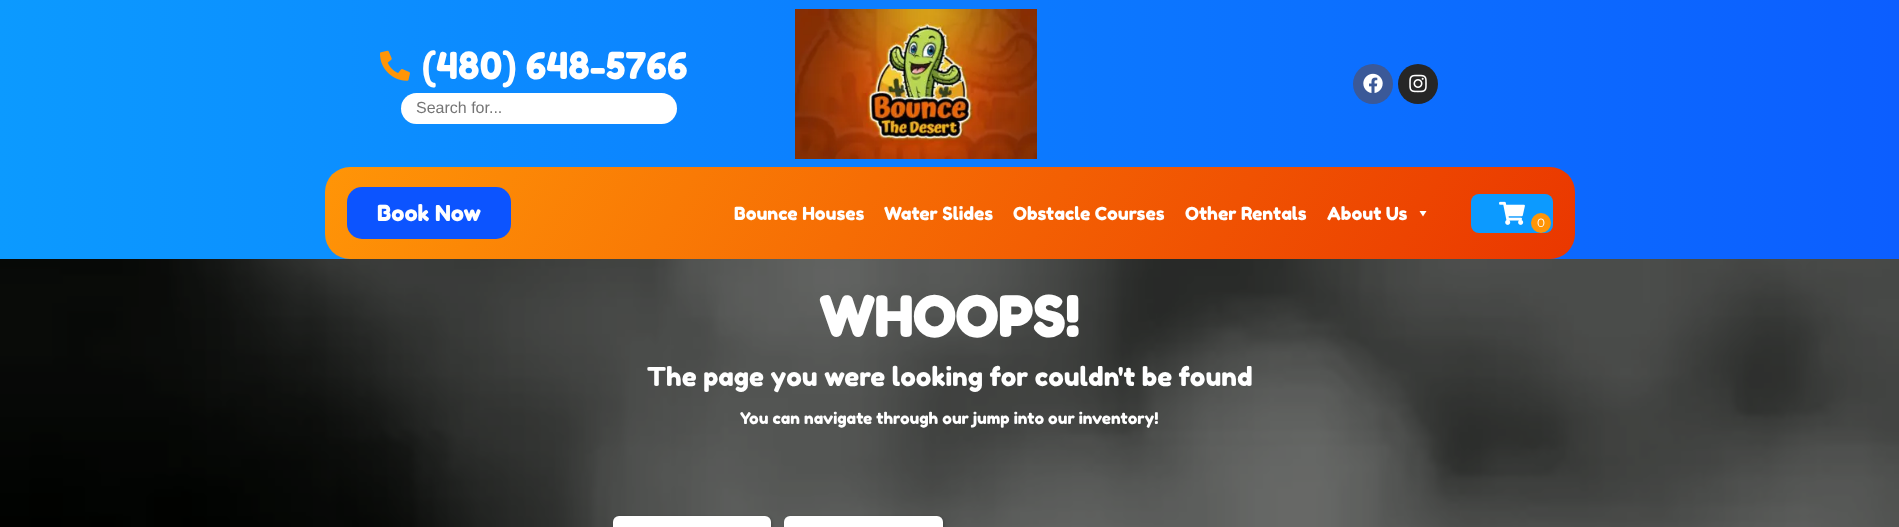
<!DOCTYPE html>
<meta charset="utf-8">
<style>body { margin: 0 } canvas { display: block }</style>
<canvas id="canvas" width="1899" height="527"></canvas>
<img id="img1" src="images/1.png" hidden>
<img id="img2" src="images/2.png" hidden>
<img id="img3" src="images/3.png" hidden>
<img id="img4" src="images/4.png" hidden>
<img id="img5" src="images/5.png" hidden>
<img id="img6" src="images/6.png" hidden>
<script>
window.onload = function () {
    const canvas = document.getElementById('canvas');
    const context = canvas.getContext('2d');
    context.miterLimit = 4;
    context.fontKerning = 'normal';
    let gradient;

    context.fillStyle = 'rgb(255, 255, 255)';
    context.fillRect(0, 0, 1899, 527);
    gradient = context.createLinearGradient(0, 504, 1899, 503);
    gradient.addColorStop(0, 'rgb(12, 154, 255)');
    gradient.addColorStop(1, 'rgb(12, 94, 255)');
    context.fillStyle = gradient;
    context.fillRect(0, 0, 1899, 259);
    context.drawImage(document.getElementById('img1'), 380, 50, 30, 31);
    context.fillStyle = 'rgb(255, 255, 255)';
    context.beginPath();
    context.roundRect(401, 93, 276, 31, 15.5);
    context.fill();
    context.drawImage(document.getElementById('img2'), 795, 9, 242, 150);
    context.fillStyle = 'rgb(59, 89, 152)';
    context.beginPath();
    context.arc(1373, 84, 20, 0, 2 * Math.PI);
    context.fill();
    context.drawImage(document.getElementById('img3'), 1363, 73, 20, 20);
    context.fillStyle = 'rgb(38, 38, 38)';
    context.beginPath();
    context.arc(1418, 84, 20, 0, 2 * Math.PI);
    context.fill();
    context.drawImage(document.getElementById('img4'), 1409, 74, 18, 19);
    gradient = context.createLinearGradient(461, -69, 1439, 495);
    gradient.addColorStop(0, 'rgb(255, 149, 7)');
    gradient.addColorStop(1, 'rgb(234, 55, 0)');
    context.fillStyle = gradient;
    context.beginPath();
    context.roundRect(325, 167, 1250, 92, 25);
    context.fill();
    context.fillStyle = 'rgb(12, 84, 255)';
    context.beginPath();
    context.roundRect(347, 187, 164, 52, 15);
    context.fill();
    context.fillStyle = 'rgb(255, 255, 255)';
    context.beginPath();
    context.moveTo(1426.5, 211);
    context.lineTo(1423, 216.5);
    context.lineTo(1419.5, 211);
    context.closePath();
    context.fill();
    context.fillStyle = 'rgb(12, 154, 255)';
    context.beginPath();
    context.roundRect(1471, 194, 82, 39, 8);
    context.fill();
    context.drawImage(document.getElementById('img5'), 1499, 201, 26, 24);
    context.fillStyle = 'rgb(255, 149, 7)';
    context.beginPath();
    context.arc(1541, 223, 10, 0, 2 * Math.PI);
    context.fill();
    context.drawImage(document.getElementById('img6'), 0, 259, 1899, 268);
    context.fillStyle = 'rgba(0, 0, 0, 0.2)';
    context.filter = 'blur(1.5px)';
    context.beginPath();
    context.roundRect(614, 517, 158, 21, 6);
    context.fill();
    context.filter = 'none';
    context.fillStyle = 'rgb(255, 255, 255)';
    context.beginPath();
    context.roundRect(613, 516, 158, 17, 6);
    context.fill();
    context.fillStyle = 'rgba(0, 0, 0, 0.2)';
    context.filter = 'blur(1.5px)';
    context.beginPath();
    context.roundRect(785, 517, 159, 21, 6);
    context.fill();
    context.filter = 'none';
    context.fillStyle = 'rgb(255, 255, 255)';
    context.beginPath();
    context.roundRect(784, 516, 159, 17, 6);
    context.fill();
    context.font = '37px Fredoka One';
    context.fillText('(480) 648-5766', 422, 79);
    context.font = '16px Liberation Sans';
    context.fillStyle = 'rgb(117, 117, 117)';
    context.fillText('Search for...', 416, 113);
    context.font = '22px Fredoka One';
    context.fillStyle = 'rgb(255, 255, 255)';
    context.fillText('Book Now', 377, 221);
    context.font = '18px Fredoka One';
    context.fillText('Bounce Houses', 734, 220);
    context.fillText('Water Slides', 884, 220);
    context.fillText('Obstacle Courses', 1013, 220);
    context.fillText('Other Rentals', 1185, 220);
    context.fillText('About Us', 1327, 220);
    context.font = '12px Montserrat';
    context.fillText('0', 1537, 227);
    context.font = 'bold 55px Fredoka One';
    context.fillText('WHOOPS!', 819, 337);
    context.font = '26px Fredoka One';
    context.fillText('The page you were looking for couldn\'t be found', 647, 386);
    context.font = '16px Fredoka One';
    context.fillText('You can navigate through our jump into our inventory!', 740, 424);
};
</script>
